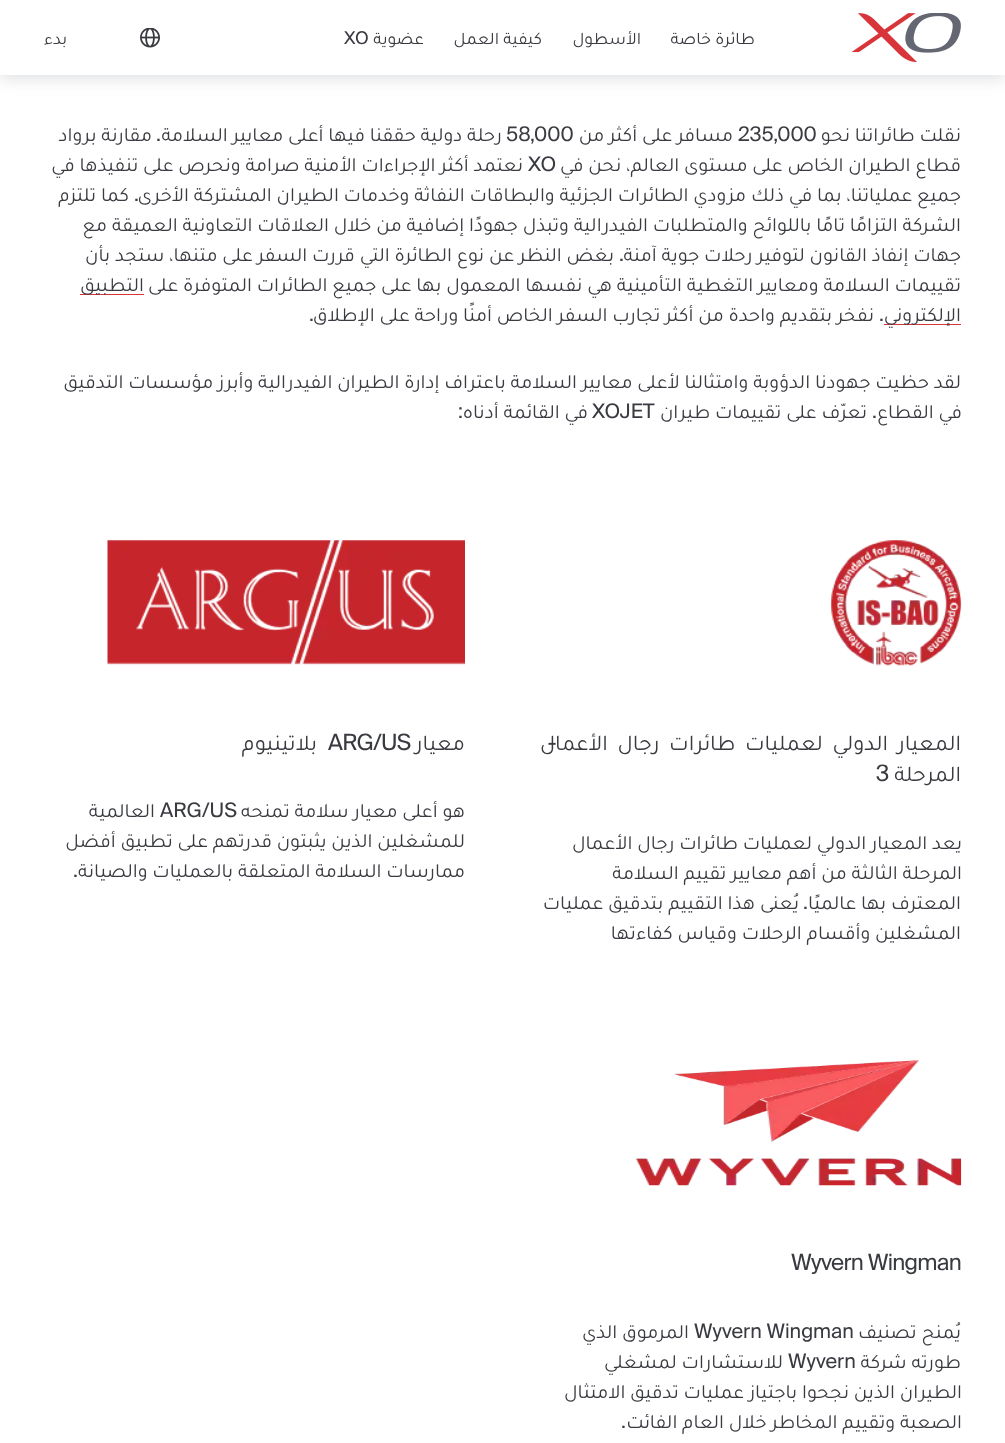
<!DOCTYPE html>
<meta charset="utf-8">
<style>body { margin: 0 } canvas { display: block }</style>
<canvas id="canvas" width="1005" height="1443"></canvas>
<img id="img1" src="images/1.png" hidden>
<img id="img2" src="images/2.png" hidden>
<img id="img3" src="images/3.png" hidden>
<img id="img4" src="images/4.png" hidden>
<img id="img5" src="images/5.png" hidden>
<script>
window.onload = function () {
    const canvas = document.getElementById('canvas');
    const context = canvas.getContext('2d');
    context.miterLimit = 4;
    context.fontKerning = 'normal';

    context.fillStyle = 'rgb(255, 255, 255)';
    context.fillRect(0, 0, 1005, 1443);
    context.fillStyle = 'rgba(101, 104, 114, 0.2)';
    context.filter = 'blur(8px)';
    context.beginPath();
    context.rect(0, 4, 1005, 75);
    context.fill();
    context.filter = 'none';
    context.fillStyle = 'rgb(255, 255, 255)';
    context.fillRect(0, 0, 1005, 75);
    context.drawImage(document.getElementById('img1'), 851, 13, 110, 50);
    context.drawImage(document.getElementById('img2'), 140, 28, 20, 20);
    context.fillStyle = 'rgb(216, 53, 59)';
    context.fillRect(80, 294, 64, 1);
    context.fillRect(884, 324, 77, 1);
    context.drawImage(document.getElementById('img3'), 831, 540, 131, 126);
    context.drawImage(document.getElementById('img4'), 107, 540, 358, 125);
    context.drawImage(document.getElementById('img5'), 636, 1060, 326, 126);
    context.direction = 'rtl';
    context.font = '17.5px Tajawal';
    context.fillStyle = 'rgb(57, 59, 65)';
    context.fillText('طائرة خاصة', 755, 44);
    context.fillText('الأسطول', 641, 44);
    context.fillText('كيفية العمل', 542, 44);
    context.fillText('عضوية', 424, 44);
    context.direction = 'ltr';
    context.font = '17.5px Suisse';
    context.fillText('XO', 344, 44);
    context.direction = 'rtl';
    context.font = '17.5px Tajawal';
    context.fillText('بدء', 67, 44);
    context.font = '20px Tajawal';
    context.fillText('نقلت طائراتنا نحو', 961, 141);
    context.direction = 'ltr';
    context.font = '20px Suisse';
    context.fillText('235,000', 738, 141);
    context.direction = 'rtl';
    context.font = '20px Tajawal';
    context.fillText('مسافر على أكثر من', 733, 141);
    context.direction = 'ltr';
    context.font = '20px Suisse';
    context.fillText('58,000', 506, 141);
    context.direction = 'rtl';
    context.font = '20px Tajawal';
    context.fillText('رحلة دولية حققنا فيها أعلى معايير السلامة', 502, 141);
    context.font = '20px Suisse';
    context.fillText('.', 161, 141);
    context.font = '20px Tajawal';
    context.fillText('مقارنة برواد', 152, 141);
    context.fillText('قطاع الطيران الخاص على مستوى العالم، نحن في', 961, 171);
    context.direction = 'ltr';
    context.font = '20px Suisse';
    context.fillText('XO', 528, 171);
    context.direction = 'rtl';
    context.font = '20px Tajawal';
    context.fillText('نعتمد أكثر الإجراءات الأمنية صرامة ونحرص على تنفيذها في', 523, 171);
    context.fillText('جميع عملياتنا، بما في ذلك مزودي الطائرات الجزئية والبطاقات النفاثة وخدمات الطيران المشتركة الأخرى', 961, 201);
    context.font = '20px Suisse';
    context.fillText('.', 139, 201);
    context.font = '20px Tajawal';
    context.fillText('كما تلتزم', 129, 201);
    context.fillText('الشركة التزامًا تامًا باللوائح والمتطلبات الفيدرالية وتبذل جهودًا إضافية من خلال العلاقات التعاونية العميقة مع', 961, 231);
    context.fillText('جهات إنفاذ القانون لتوفير رحلات جوية آمنة', 961, 261);
    context.font = '20px Suisse';
    context.fillText('.', 624, 261);
    context.font = '20px Tajawal';
    context.fillText('بغض النظر عن نوع الطائرة التي قررت السفر على متنها، ستجد بأن', 614, 261);
    context.fillText('تقييمات السلامة ومعايير التغطية التأمينية هي نفسها المعمول بها على جميع الطائرات المتوفرة على', 961, 291);
    context.fillText('التطبيق', 144, 291);
    context.fillText('الإلكتروني', 961, 321);
    context.font = '20px Suisse';
    context.fillText('.', 884, 321);
    context.font = '20px Tajawal';
    context.fillText('نفخر بتقديم واحدة من أكثر تجارب السفر الخاص أمنًا وراحة على الإطلاق', 874, 321);
    context.font = '20px Suisse';
    context.fillText('.', 314, 321);
    context.font = '20px Tajawal';
    context.fillText('لقد حظيت جهودنا الدؤوبة وامتثالنا لأعلى معايير السلامة باعتراف إدارة الطيران الفيدرالية وأبرز مؤسسات التدقيق', 961, 388);
    context.fillText('في القطاع', 962, 418);
    context.font = '20px Suisse';
    context.fillText('.', 877, 418);
    context.font = '20px Tajawal';
    context.fillText('تعرّف على تقييمات طيران', 867, 418);
    context.direction = 'ltr';
    context.font = '20px Suisse';
    context.fillText('XOJET', 592, 418);
    context.direction = 'rtl';
    context.font = '20px Tajawal';
    context.fillText('في القائمة أدناه', 588, 418);
    context.font = '20px Suisse';
    context.fillText(':', 463, 418);
    context.letterSpacing = '-0.7px';
    context.wordSpacing = '5px';
    context.font = '22.5px Tajawal';
    context.fillText('المعيار الدولي لعمليات طائرات رجال الأعمال', 961, 750);
    context.wordSpacing = '0px';
    context.font = '22.5px Suisse';
    context.fillText('-', 556, 750);
    context.font = '22.5px Tajawal';
    context.fillText('المرحلة', 961, 781);
    context.direction = 'ltr';
    context.font = '22.5px Suisse';
    context.fillText('3', 876, 781);
    context.letterSpacing = '0px';
    context.direction = 'rtl';
    context.font = '20px Tajawal';
    context.fillText('يعد المعيار الدولي لعمليات طائرات رجال الأعمال', 962, 849);
    context.fillText('المرحلة الثالثة من أهم معايير تقييم السلامة', 962, 879);
    context.fillText('المعترف بها عالميًا', 961, 909);
    context.font = '20px Suisse';
    context.fillText('.', 808, 909);
    context.font = '20px Tajawal';
    context.fillText('يُعنى هذا التقييم بتدقيق عمليات', 799, 909);
    context.fillText('المشغلين وأقسام الرحلات وقياس كفاءتها', 961, 939);
    context.letterSpacing = '-0.7px';
    context.font = '22.5px Tajawal';
    context.fillText('معيار', 465, 750);
    context.direction = 'ltr';
    context.font = '22.5px Suisse';
    context.fillText('ARG/US', 328, 750);
    context.direction = 'rtl';
    context.font = '22.5px Tajawal';
    context.fillText('بلاتينيوم', 317, 750);
    context.letterSpacing = '0px';
    context.font = '20px Tajawal';
    context.fillText('هو أعلى معيار سلامة تمنحه', 465, 817);
    context.direction = 'ltr';
    context.font = '20px Suisse';
    context.fillText('ARG/US', 160, 817);
    context.direction = 'rtl';
    context.font = '20px Tajawal';
    context.fillText('العالمية', 155, 817);
    context.fillText('للمشغلين الذين يثبتون قدرتهم على تطبيق أفضل', 465, 847);
    context.fillText('ممارسات السلامة المتعلقة بالعمليات والصيانة', 465, 877);
    context.font = '20px Suisse';
    context.fillText('.', 78, 877);
    context.letterSpacing = '-0.7px';
    context.direction = 'ltr';
    context.font = '22.5px Suisse';
    context.fillText('Wyvern Wingman', 791, 1270);
    context.letterSpacing = '0px';
    context.direction = 'rtl';
    context.font = '20px Tajawal';
    context.fillText('يُمنح تصنيف', 961, 1338);
    context.direction = 'ltr';
    context.font = '20px Suisse';
    context.fillText('Wyvern Wingman', 694, 1338);
    context.direction = 'rtl';
    context.font = '20px Tajawal';
    context.fillText('المرموق الذي', 689, 1338);
    context.fillText('طورته شركة', 961, 1368);
    context.direction = 'ltr';
    context.font = '20px Suisse';
    context.fillText('Wyvern', 788, 1368);
    context.direction = 'rtl';
    context.font = '20px Tajawal';
    context.fillText('للاستشارات لمشغلي', 783, 1368);
    context.fillText('الطيران الذين نجحوا باجتياز عمليات تدقيق الامتثال', 962, 1398);
    context.fillText('الصعبة وتقييم المخاطر خلال العام الفائت', 962, 1428);
    context.font = '20px Suisse';
    context.fillText('.', 626, 1428);
};
</script>
